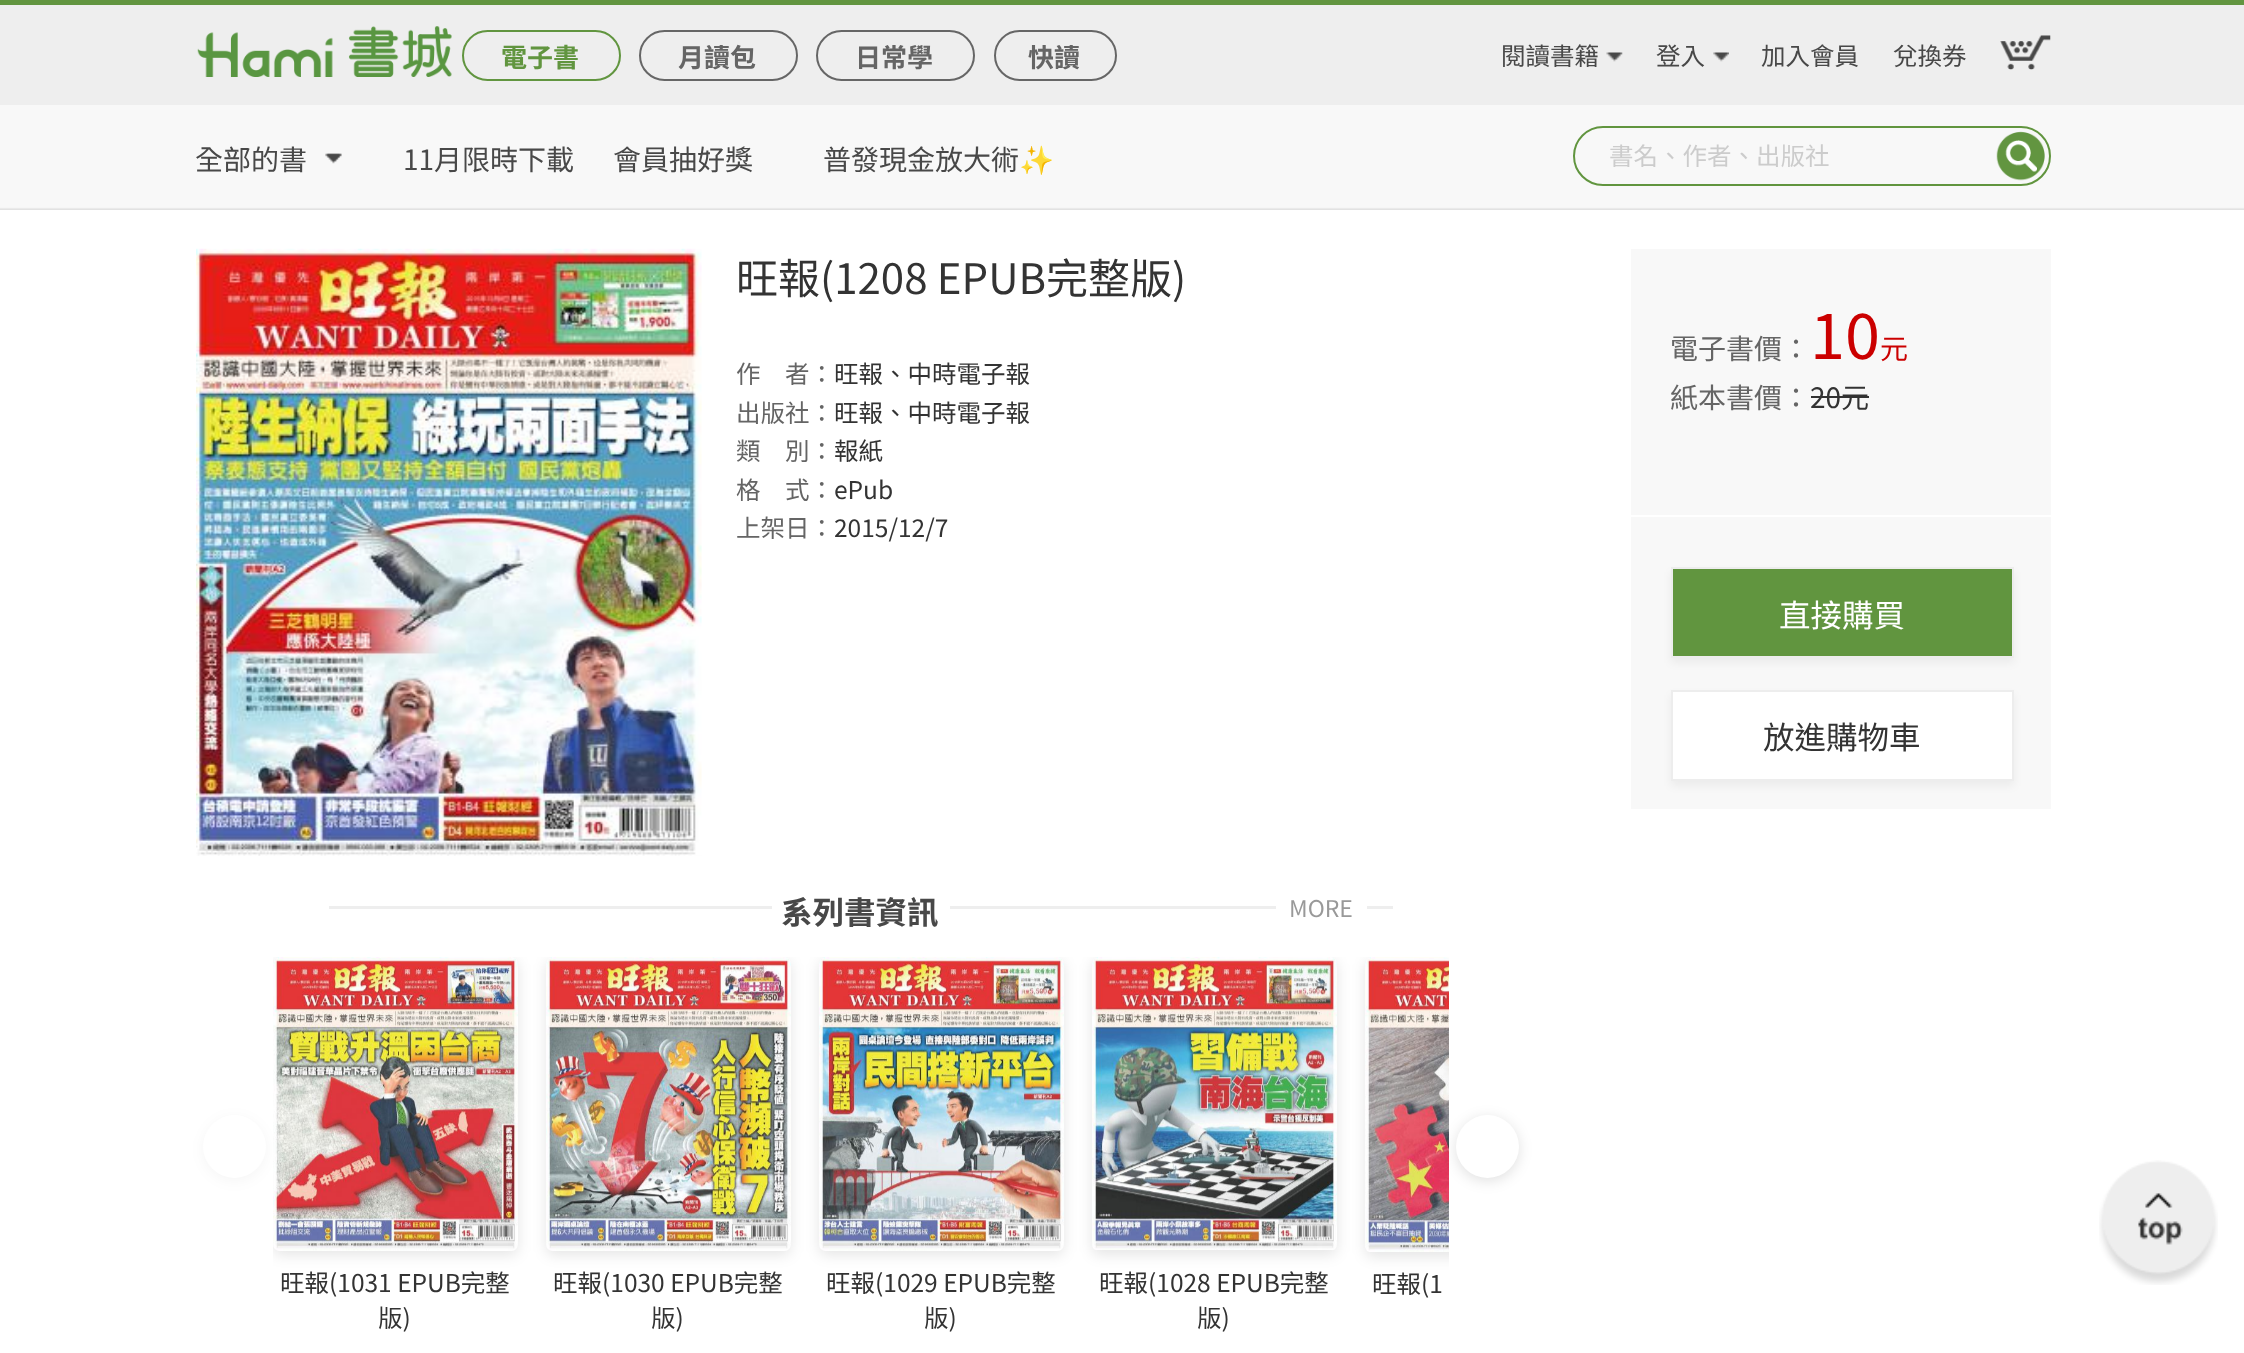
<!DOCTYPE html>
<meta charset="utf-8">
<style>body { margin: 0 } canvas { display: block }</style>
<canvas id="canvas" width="2244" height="1353"></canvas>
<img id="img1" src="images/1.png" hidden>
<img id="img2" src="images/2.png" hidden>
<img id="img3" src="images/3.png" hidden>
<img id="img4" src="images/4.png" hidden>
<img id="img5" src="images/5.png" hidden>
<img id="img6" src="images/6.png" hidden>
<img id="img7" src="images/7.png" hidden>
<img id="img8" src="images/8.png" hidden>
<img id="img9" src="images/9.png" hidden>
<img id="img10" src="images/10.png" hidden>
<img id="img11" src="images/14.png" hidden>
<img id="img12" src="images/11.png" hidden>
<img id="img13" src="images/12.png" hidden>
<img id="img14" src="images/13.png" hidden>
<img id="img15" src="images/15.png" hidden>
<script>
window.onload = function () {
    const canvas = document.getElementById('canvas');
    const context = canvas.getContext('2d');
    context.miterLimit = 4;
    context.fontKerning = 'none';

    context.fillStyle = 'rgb(255, 255, 255)';
    context.fillRect(0, 0, 2244, 1353);
    context.fillStyle = 'rgb(98, 149, 64)';
    context.fillRect(0, 0, 2244, 5);
    context.fillStyle = 'rgb(238, 238, 238)';
    context.fillRect(0, 5, 2244, 100);
    context.drawImage(document.getElementById('img1'), 197, 26, 255, 51);
    context.beginPath();
    context.roundRect(463, 31, 157, 49, 24.5);
    context.strokeStyle = 'rgb(97, 149, 63)';
    context.lineWidth = 2;
    context.stroke();
    context.beginPath();
    context.roundRect(640, 31, 157, 49, 24.5);
    context.strokeStyle = 'rgb(102, 102, 102)';
    context.stroke();
    context.beginPath();
    context.roundRect(817, 31, 157, 49, 24.5);
    context.stroke();
    context.beginPath();
    context.roundRect(995, 31, 121, 49, 24.5);
    context.stroke();
    context.drawImage(document.getElementById('img2'), 1606, 52, 17, 10);
    context.drawImage(document.getElementById('img3'), 1713, 52, 16, 10);
    context.drawImage(document.getElementById('img4'), 2000, 35, 51, 35);
    context.drawImage(document.getElementById('img5'), 0, 105, 2244, 105);
    context.drawImage(document.getElementById('img6'), 325, 153, 17, 11);
    context.drawImage(document.getElementById('img7'), 325, 153, 17, 11);
    context.beginPath();
    context.roundRect(1574, 127, 476, 58, 29);
    context.strokeStyle = 'rgb(97, 149, 63)';
    context.stroke();
    context.drawImage(document.getElementById('img8'), 1996, 131, 49, 50);
    context.drawImage(document.getElementById('img9'), 196, 248, 506, 608);
    context.fillRect(329, 906, 1064, 3);
    context.fillStyle = 'rgb(255, 255, 255)';
    context.fillRect(772, 906, 178, 3);
    context.fillRect(1276, 906, 91, 3);
    context.save();
    context.beginPath();
    context.rect(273, 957, 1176, 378);
    context.clip();
    context.fillStyle = 'rgba(0, 0, 0, 0.1)';
    context.filter = 'blur(7px)';
    context.beginPath();
    context.roundRect(273, 961, 245, 294, 7);
    context.fill();
    context.filter = 'none';
    context.restore();
    context.drawImage(document.getElementById('img10'), 273, 957, 245, 294);
    context.fillStyle = 'rgba(0, 0, 0, 0.04)';
    context.filter = 'blur(7px)';
    context.beginPath();
    context.roundRect(203, 1118, 63, 63, 31.5);
    context.fill();
    context.filter = 'none';
    context.fillStyle = 'rgb(255, 255, 255)';
    context.beginPath();
    context.arc(234.5, 1146.5, 31.5, 0, 2 * Math.PI);
    context.fill();
    context.save();
    context.beginPath();
    context.rect(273, 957, 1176, 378);
    context.clip();
    context.fillStyle = 'rgba(0, 0, 0, 0.1)';
    context.filter = 'blur(7px)';
    context.beginPath();
    context.roundRect(1365, 961, 245, 296, 7);
    context.fill();
    context.filter = 'none';
    context.restore();
    context.drawImage(document.getElementById('img11'), 1365, 957, 84, 295);
    context.fillStyle = 'rgba(0, 0, 0, 0.12)';
    context.filter = 'blur(7px)';
    context.beginPath();
    context.roundRect(1456, 1118, 63, 63, 31.5);
    context.fill();
    context.filter = 'none';
    context.fillStyle = 'rgb(255, 255, 255)';
    context.beginPath();
    context.arc(1487.5, 1146.5, 31.5, 0, 2 * Math.PI);
    context.fill();
    context.save();
    context.beginPath();
    context.rect(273, 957, 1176, 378);
    context.clip();
    context.fillStyle = 'rgba(0, 0, 0, 0.1)';
    context.filter = 'blur(7px)';
    context.beginPath();
    context.roundRect(546, 961, 245, 294, 7);
    context.fill();
    context.filter = 'none';
    context.restore();
    context.drawImage(document.getElementById('img12'), 546, 957, 245, 294);
    context.save();
    context.beginPath();
    context.rect(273, 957, 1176, 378);
    context.clip();
    context.fillStyle = 'rgba(0, 0, 0, 0.1)';
    context.filter = 'blur(7px)';
    context.beginPath();
    context.roundRect(819, 961, 245, 294, 7);
    context.fill();
    context.filter = 'none';
    context.restore();
    context.drawImage(document.getElementById('img13'), 819, 957, 245, 294);
    context.save();
    context.beginPath();
    context.rect(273, 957, 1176, 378);
    context.clip();
    context.fillStyle = 'rgba(0, 0, 0, 0.1)';
    context.filter = 'blur(7px)';
    context.beginPath();
    context.roundRect(1092, 961, 245, 294, 7);
    context.fill();
    context.filter = 'none';
    context.restore();
    context.drawImage(document.getElementById('img14'), 1092, 957, 245, 293);
    context.fillStyle = 'rgb(248, 248, 248)';
    context.fillRect(1631, 249, 420, 560);
    context.fillStyle = 'rgb(255, 255, 255)';
    context.fillRect(1631, 515, 420, 2);
    context.fillStyle = 'rgb(51, 51, 51)';
    context.fillRect(1811, 396, 58, 2);
    context.fillStyle = 'rgba(0, 0, 0, 0.05)';
    context.filter = 'blur(4.5px)';
    context.beginPath();
    context.rect(1671, 572, 343, 91);
    context.fill();
    context.filter = 'none';
    context.fillStyle = 'rgb(97, 149, 63)';
    context.beginPath();
    context.rect(1672, 568, 341, 89);
    context.fill();
    context.strokeStyle = 'rgb(237, 237, 237)';
    context.stroke();
    context.fillStyle = 'rgba(0, 0, 0, 0.05)';
    context.filter = 'blur(4.5px)';
    context.beginPath();
    context.rect(1671, 695, 343, 91);
    context.fill();
    context.filter = 'none';
    context.fillStyle = 'rgb(255, 255, 255)';
    context.beginPath();
    context.rect(1672, 691, 341, 89);
    context.fill();
    context.stroke();
    context.drawImage(document.getElementById('img15'), 2099, 1160, 119, 125);
    context.font = 'bold 26px Noto Sans TC';
    context.fillStyle = 'rgb(97, 149, 63)';
    context.fillText('電子書', 501, 67);
    context.fillStyle = 'rgb(101, 101, 101)';
    context.fillText('月讀包', 678, 67);
    context.fillText('日常學', 855, 67);
    context.fillText('快讀', 1028, 67);
    context.font = '24.5px Noto Sans TC';
    context.fillStyle = 'rgb(72, 72, 72)';
    context.fillText('閱讀書籍', 1501, 65);
    context.fillText('登入', 1656, 65);
    context.fillText('加入會員', 1761, 65);
    context.fillText('兌換券', 1893, 65);
    context.font = '28px Noto Sans TC';
    context.fillText('全部的書', 195, 170);
    context.fillText('11月限時下載', 403, 170);
    context.fillText('會員抽好獎', 613, 170);
    context.fillText('普發現金放大術', 823, 170);
    context.font = '28px Noto Color Emoji';
    context.fillText('✨', 1019, 170);
    context.font = '24.5px Noto Sans CJK TC';
    context.fillStyle = 'rgb(204, 204, 204)';
    context.fillText('書名、作者、出版社', 1609, 165);
    context.font = '42px Noto Sans TC';
    context.fillStyle = 'rgb(51, 51, 51)';
    context.fillText('旺報(1208 EPUB完整版)', 736, 294);
    context.font = '24.5px Noto Sans TC';
    context.fillStyle = 'rgb(101, 101, 101)';
    context.fillText('作', 736, 383);
    context.fillText('者：', 785, 383);
    context.fillStyle = 'rgb(51, 51, 51)';
    context.fillText('旺報、中時電子報', 834, 383);
    context.fillStyle = 'rgb(101, 101, 101)';
    context.fillText('出版社：', 736, 422);
    context.fillStyle = 'rgb(51, 51, 51)';
    context.fillText('旺報、中時電子報', 834, 422);
    context.fillStyle = 'rgb(101, 101, 101)';
    context.fillText('類', 736, 460);
    context.fillText('別：', 785, 460);
    context.fillStyle = 'rgb(51, 51, 51)';
    context.fillText('報紙', 834, 460);
    context.fillStyle = 'rgb(101, 101, 101)';
    context.fillText('格', 736, 499);
    context.fillText('式：', 785, 499);
    context.fillStyle = 'rgb(51, 51, 51)';
    context.fillText('ePub', 834, 499);
    context.fillStyle = 'rgb(101, 101, 101)';
    context.fillText('上架日：', 736, 537);
    context.fillStyle = 'rgb(51, 51, 51)';
    context.fillText('2015/12/7', 834, 537);
    context.font = 'bold 31.5px Noto Sans TC';
    context.fillStyle = 'rgb(72, 72, 72)';
    context.fillText('系列書資訊', 781, 924);
    context.font = '23px Noto Sans TC';
    context.fillStyle = 'rgb(153, 153, 153)';
    context.fillText('MORE', 1289, 917);
    context.font = '24.5px Noto Sans TC';
    context.fillStyle = 'rgb(51, 51, 51)';
    context.fillText('旺報(1031 EPUB完整', 280, 1292);
    context.fillText('版)', 378, 1327);
    context.fillText('旺報(1030 EPUB完整', 553, 1292);
    context.fillText('版)', 651, 1327);
    context.fillText('旺報(1029 EPUB完整', 826, 1292);
    context.fillText('版)', 924, 1327);
    context.fillText('旺報(1028 EPUB完整', 1099, 1292);
    context.fillText('版)', 1197, 1327);
    context.fillText('旺報(1', 1372, 1293);
    context.font = '28px Noto Sans TC';
    context.fillStyle = 'rgb(101, 101, 101)';
    context.fillText('電子書價：', 1670, 359);
    context.font = '63px Noto Sans TC';
    context.fillStyle = 'rgb(203, 0, 0)';
    context.fillText('10', 1810, 359);
    context.font = '28px Noto Sans TC';
    context.fillText('元', 1880, 359);
    context.fillStyle = 'rgb(101, 101, 101)';
    context.fillText('紙本書價：', 1670, 408);
    context.fillStyle = 'rgb(51, 51, 51)';
    context.fillText('20元', 1810, 408);
    context.font = '31.5px Noto Sans TC';
    context.fillStyle = 'rgb(255, 255, 255)';
    context.fillText('直接購買', 1779, 627);
    context.fillStyle = 'rgb(51, 51, 51)';
    context.fillText('放進購物車', 1763, 749);
};
</script>
